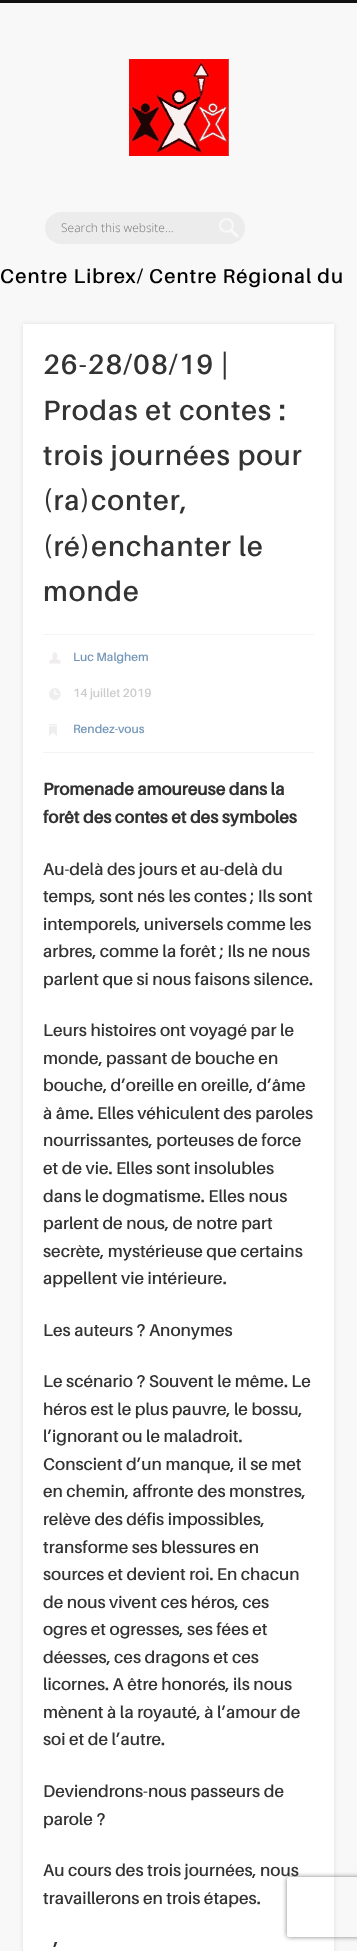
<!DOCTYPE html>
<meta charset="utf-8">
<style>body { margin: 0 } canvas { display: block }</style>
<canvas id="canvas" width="357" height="1951"></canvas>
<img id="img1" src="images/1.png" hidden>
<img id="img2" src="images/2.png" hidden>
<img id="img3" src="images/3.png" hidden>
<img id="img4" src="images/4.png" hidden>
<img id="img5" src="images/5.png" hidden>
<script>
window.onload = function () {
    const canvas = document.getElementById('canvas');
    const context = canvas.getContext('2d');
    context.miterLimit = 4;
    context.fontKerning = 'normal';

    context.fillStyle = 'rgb(248, 248, 248)';
    context.fillRect(0, 0, 357, 1951);
    context.fillStyle = 'rgb(17, 17, 17)';
    context.fillRect(0, 0, 357, 3);
    context.drawImage(document.getElementById('img1'), 129, 59, 100, 97);
    context.fillStyle = 'rgb(236, 236, 236)';
    context.beginPath();
    context.roundRect(45, 212, 200, 32, 16);
    context.fill();
    context.drawImage(document.getElementById('img2'), 219, 218, 20, 20);
    context.fillStyle = 'rgba(0, 0, 0, 0.1)';
    context.filter = 'blur(2.5px)';
    context.beginPath();
    context.rect(23, 324, 311, 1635);
    context.fill();
    context.filter = 'none';
    context.fillStyle = 'rgb(255, 255, 255)';
    context.fillRect(23, 324, 311, 1627);
    context.fillStyle = 'rgb(244, 244, 244)';
    context.fillRect(43, 634, 271, 1);
    context.fillRect(43, 752, 271, 1);
    context.drawImage(document.getElementById('img3'), 49, 652, 12, 12);
    context.drawImage(document.getElementById('img4'), 49, 688, 12, 12);
    context.drawImage(document.getElementById('img5'), 49, 724, 8, 12);
    context.save();
    context.beginPath();
    context.moveTo(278, 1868);
    context.lineTo(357, 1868);
    context.lineTo(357, 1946);
    context.lineTo(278, 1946);
    context.closePath();
    context.moveTo(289, 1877);
    context.lineTo(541, 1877);
    context.bezierCurveTo(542, 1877, 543, 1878, 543, 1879);
    context.lineTo(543, 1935);
    context.bezierCurveTo(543, 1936, 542, 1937, 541, 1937);
    context.lineTo(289, 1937);
    context.bezierCurveTo(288, 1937, 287, 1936, 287, 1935);
    context.lineTo(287, 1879);
    context.bezierCurveTo(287, 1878, 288, 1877, 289, 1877);
    context.closePath();
    context.clip('evenodd');
    context.fillStyle = 'rgb(128, 128, 128)';
    context.filter = 'blur(2.5px)';
    context.beginPath();
    context.roundRect(287, 1877, 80, 60, 2);
    context.fill();
    context.filter = 'none';
    context.restore();
    context.font = '300 12px Open Sans';
    context.fillStyle = 'rgb(117, 117, 117)';
    context.fillText('Search this website…', 61, 232);
    context.letterSpacing = '1px';
    context.font = '20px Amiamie';
    context.fillStyle = 'rgb(0, 0, 0)';
    context.fillText('Centre Librex/ Centre Régional du', 0, 283);
    context.font = '28px Amiamie';
    context.fillStyle = 'rgb(51, 51, 51)';
    context.fillText('26-28/08/19 |', 43, 374);
    context.fillText('Prodas et contes :', 43, 420);
    context.fillText('trois journées pour', 43, 465);
    context.fillText('(ra)conter,', 43, 510);
    context.fillText('(ré)enchanter le', 43, 556);
    context.fillText('monde', 43, 601);
    context.letterSpacing = '0px';
    context.font = '12px Amiamie';
    context.fillStyle = 'rgb(117, 151, 185)';
    context.fillText('Luc Malghem', 73, 661);
    context.fillStyle = 'rgb(204, 204, 204)';
    context.fillText('14 juillet 2019', 73, 697);
    context.fillStyle = 'rgb(117, 151, 185)';
    context.fillText('Rendez-vous', 73, 733);
    context.font = 'bold 17px Amiamie';
    context.fillStyle = 'rgb(51, 51, 51)';
    context.fillText('Promenade amoureuse dans la', 43, 795);
    context.fillText('forêt des contes et des symboles', 43, 823);
    context.font = '17px Amiamie';
    context.fillText('Au-delà des jours et au-delà du', 43, 875);
    context.fillText('temps, sont nés les contes ; Ils sont', 43, 902);
    context.fillText('intemporels, universels comme les', 43, 930);
    context.fillText('arbres, comme la forêt ; Ils ne nous', 43, 957);
    context.fillText('parlent que si nous faisons silence.', 43, 985);
    context.fillText('Leurs histoires ont voyagé par le', 43, 1036);
    context.fillText('monde, passant de bouche en', 43, 1064);
    context.fillText('bouche, d’oreille en oreille, d’âme', 43, 1091);
    context.fillText('à âme. Elles véhiculent des paroles', 43, 1119);
    context.fillText('nourrissantes, porteuses de force', 43, 1146);
    context.fillText('et de vie. Elles sont insolubles', 43, 1174);
    context.fillText('dans le dogmatisme. Elles nous', 43, 1202);
    context.fillText('parlent de nous, de notre part', 43, 1229);
    context.fillText('secrète, mystérieuse que certains', 43, 1257);
    context.fillText('appellent vie intérieure.', 43, 1284);
    context.fillText('Les auteurs ? Anonymes', 43, 1336);
    context.fillText('Le scénario ? Souvent le même. Le', 43, 1387);
    context.fillText('héros est le plus pauvre, le bossu,', 43, 1415);
    context.fillText('l’ignorant ou le maladroit.', 43, 1442);
    context.fillText('Conscient d’un manque, il se met', 43, 1470);
    context.fillText('en chemin, affronte des monstres,', 43, 1497);
    context.fillText('relève des défis impossibles,', 43, 1525);
    context.fillText('transforme ses blessures en', 43, 1553);
    context.fillText('sources et devient roi. En chacun', 43, 1580);
    context.fillText('de nous vivent ces héros, ces', 43, 1608);
    context.fillText('ogres et ogresses, ses fées et', 43, 1635);
    context.fillText('déesses, ces dragons et ces', 43, 1663);
    context.fillText('licornes. A être honorés, ils nous', 43, 1690);
    context.fillText('mènent à la royauté, à l’amour de', 43, 1718);
    context.fillText('soi et de l’autre.', 43, 1745);
    context.fillText('Deviendrons-nous passeurs de', 43, 1797);
    context.fillText('parole ?', 43, 1825);
    context.fillText('Au cours des trois journées, nous', 43, 1876);
    context.fillText('travaillerons en trois étapes.', 43, 1904);
    context.font = 'bold 17px Amiamie';
    context.fillText('’', 53, 1955);
};
</script>
